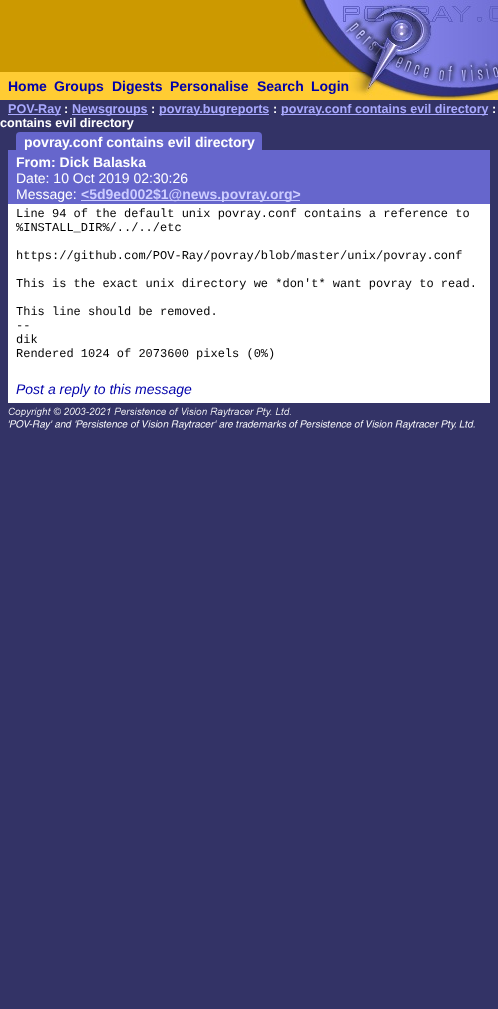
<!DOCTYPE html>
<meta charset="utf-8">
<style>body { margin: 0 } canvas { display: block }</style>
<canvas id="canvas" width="498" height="1009"></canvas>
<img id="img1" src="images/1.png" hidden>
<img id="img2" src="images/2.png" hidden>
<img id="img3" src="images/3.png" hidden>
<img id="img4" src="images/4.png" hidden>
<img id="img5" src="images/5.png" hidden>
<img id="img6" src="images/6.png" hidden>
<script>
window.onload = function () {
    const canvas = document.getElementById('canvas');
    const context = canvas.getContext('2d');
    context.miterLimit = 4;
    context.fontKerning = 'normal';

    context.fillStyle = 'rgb(51, 51, 102)';
    context.fillRect(0, 0, 498, 1009);
    context.fillStyle = 'rgb(204, 153, 0)';
    context.fillRect(0, 0, 349, 72);
    context.drawImage(document.getElementById('img1'), 296, 0, 53, 68);
    context.drawImage(document.getElementById('img2'), 349, 0, 40, 72);
    context.drawImage(document.getElementById('img3'), 389, 0, 109, 72);
    context.fillStyle = 'rgb(255, 204, 51)';
    context.fillRect(0, 72, 349, 28);
    context.fillRect(349, 98, 40, 2);
    context.drawImage(document.getElementById('img4'), 349, 72, 40, 26);
    context.drawImage(document.getElementById('img5'), 389, 72, 109, 28);
    context.fillStyle = 'rgb(170, 170, 255)';
    context.fillRect(8, 114, 53, 1);
    context.fillRect(72, 114, 76, 1);
    context.fillRect(159, 114, 110, 1);
    context.fillRect(281, 114, 207, 1);
    context.fillStyle = 'rgb(102, 102, 204)';
    context.beginPath();
    context.roundRect(16, 132, 246, 18, [4, 4, 0, 0]);
    context.fill();
    context.fillRect(8, 150, 482, 4);
    context.fillRect(8, 154, 482, 50);
    context.fillStyle = 'rgb(204, 204, 255)';
    context.fillRect(81, 200, 219, 1);
    context.fillStyle = 'rgb(255, 255, 255)';
    context.fillRect(8, 204, 482, 2);
    context.fillRect(8, 206, 482, 197);
    context.drawImage(document.getElementById('img6'), 8, 407, 467, 23);
    context.font = 'bold 14px Liberation Sans';
    context.fillStyle = 'rgb(0, 0, 170)';
    context.fillText('Home', 8, 91);
    context.fillText('Groups', 54, 91);
    context.fillText('Digests', 112, 91);
    context.fillText('Personalise', 170, 91);
    context.fillText('Search', 257, 91);
    context.fillText('Login', 311, 91);
    context.font = 'bold 12.6px Liberation Sans';
    context.fillStyle = 'rgb(170, 170, 255)';
    context.fillText('POV-Ray', 8, 113);
    context.fillStyle = 'rgb(255, 255, 255)';
    context.fillText(':', 64, 113);
    context.fillStyle = 'rgb(170, 170, 255)';
    context.fillText('Newsgroups', 72, 113);
    context.fillStyle = 'rgb(255, 255, 255)';
    context.fillText(':', 151, 113);
    context.fillStyle = 'rgb(170, 170, 255)';
    context.fillText('povray.bugreports', 159, 113);
    context.fillStyle = 'rgb(255, 255, 255)';
    context.fillText(':', 273, 113);
    context.fillStyle = 'rgb(170, 170, 255)';
    context.fillText('povray.conf contains evil directory', 281, 113);
    context.fillStyle = 'rgb(255, 255, 255)';
    context.fillText(':', 492, 113);
    context.fillText('contains evil directory', 0, 127);
    context.font = 'bold 14px Liberation Sans';
    context.fillText('povray.conf contains evil directory', 24, 147);
    context.fillText('From: Dick Balaska', 16, 167);
    context.font = '14px Liberation Sans';
    context.fillText('Date: 10 Oct 2019 02:30:26', 16, 183);
    context.fillText('Message:', 16, 199);
    context.font = 'bold 14px Liberation Sans';
    context.fillStyle = 'rgb(204, 204, 255)';
    context.fillText('<5d9ed002$1@news.povray.org>', 81, 199);
    context.font = '12px Liberation Mono';
    context.fillStyle = 'rgb(0, 0, 0)';
    context.fillText('Line 94 of the default unix povray.conf contains a reference to', 16, 217);
    context.fillText('%INSTALL_DIR%/../../etc', 16, 231);
    context.fillText('https://github.com/POV-Ray/povray/blob/master/unix/povray.conf', 16, 259);
    context.fillText('This is the exact unix directory we *don\'t* want povray to read.', 16, 287);
    context.fillText('This line should be removed.', 16, 315);
    context.fillText('--', 16, 329);
    context.fillText('dik', 16, 343);
    context.fillText('Rendered 1024 of 2073600 pixels (0%)', 16, 357);
    context.font = 'italic 14px Liberation Sans';
    context.fillStyle = 'rgb(0, 0, 170)';
    context.fillText('Post a reply to this message', 16, 394);
};
</script>
